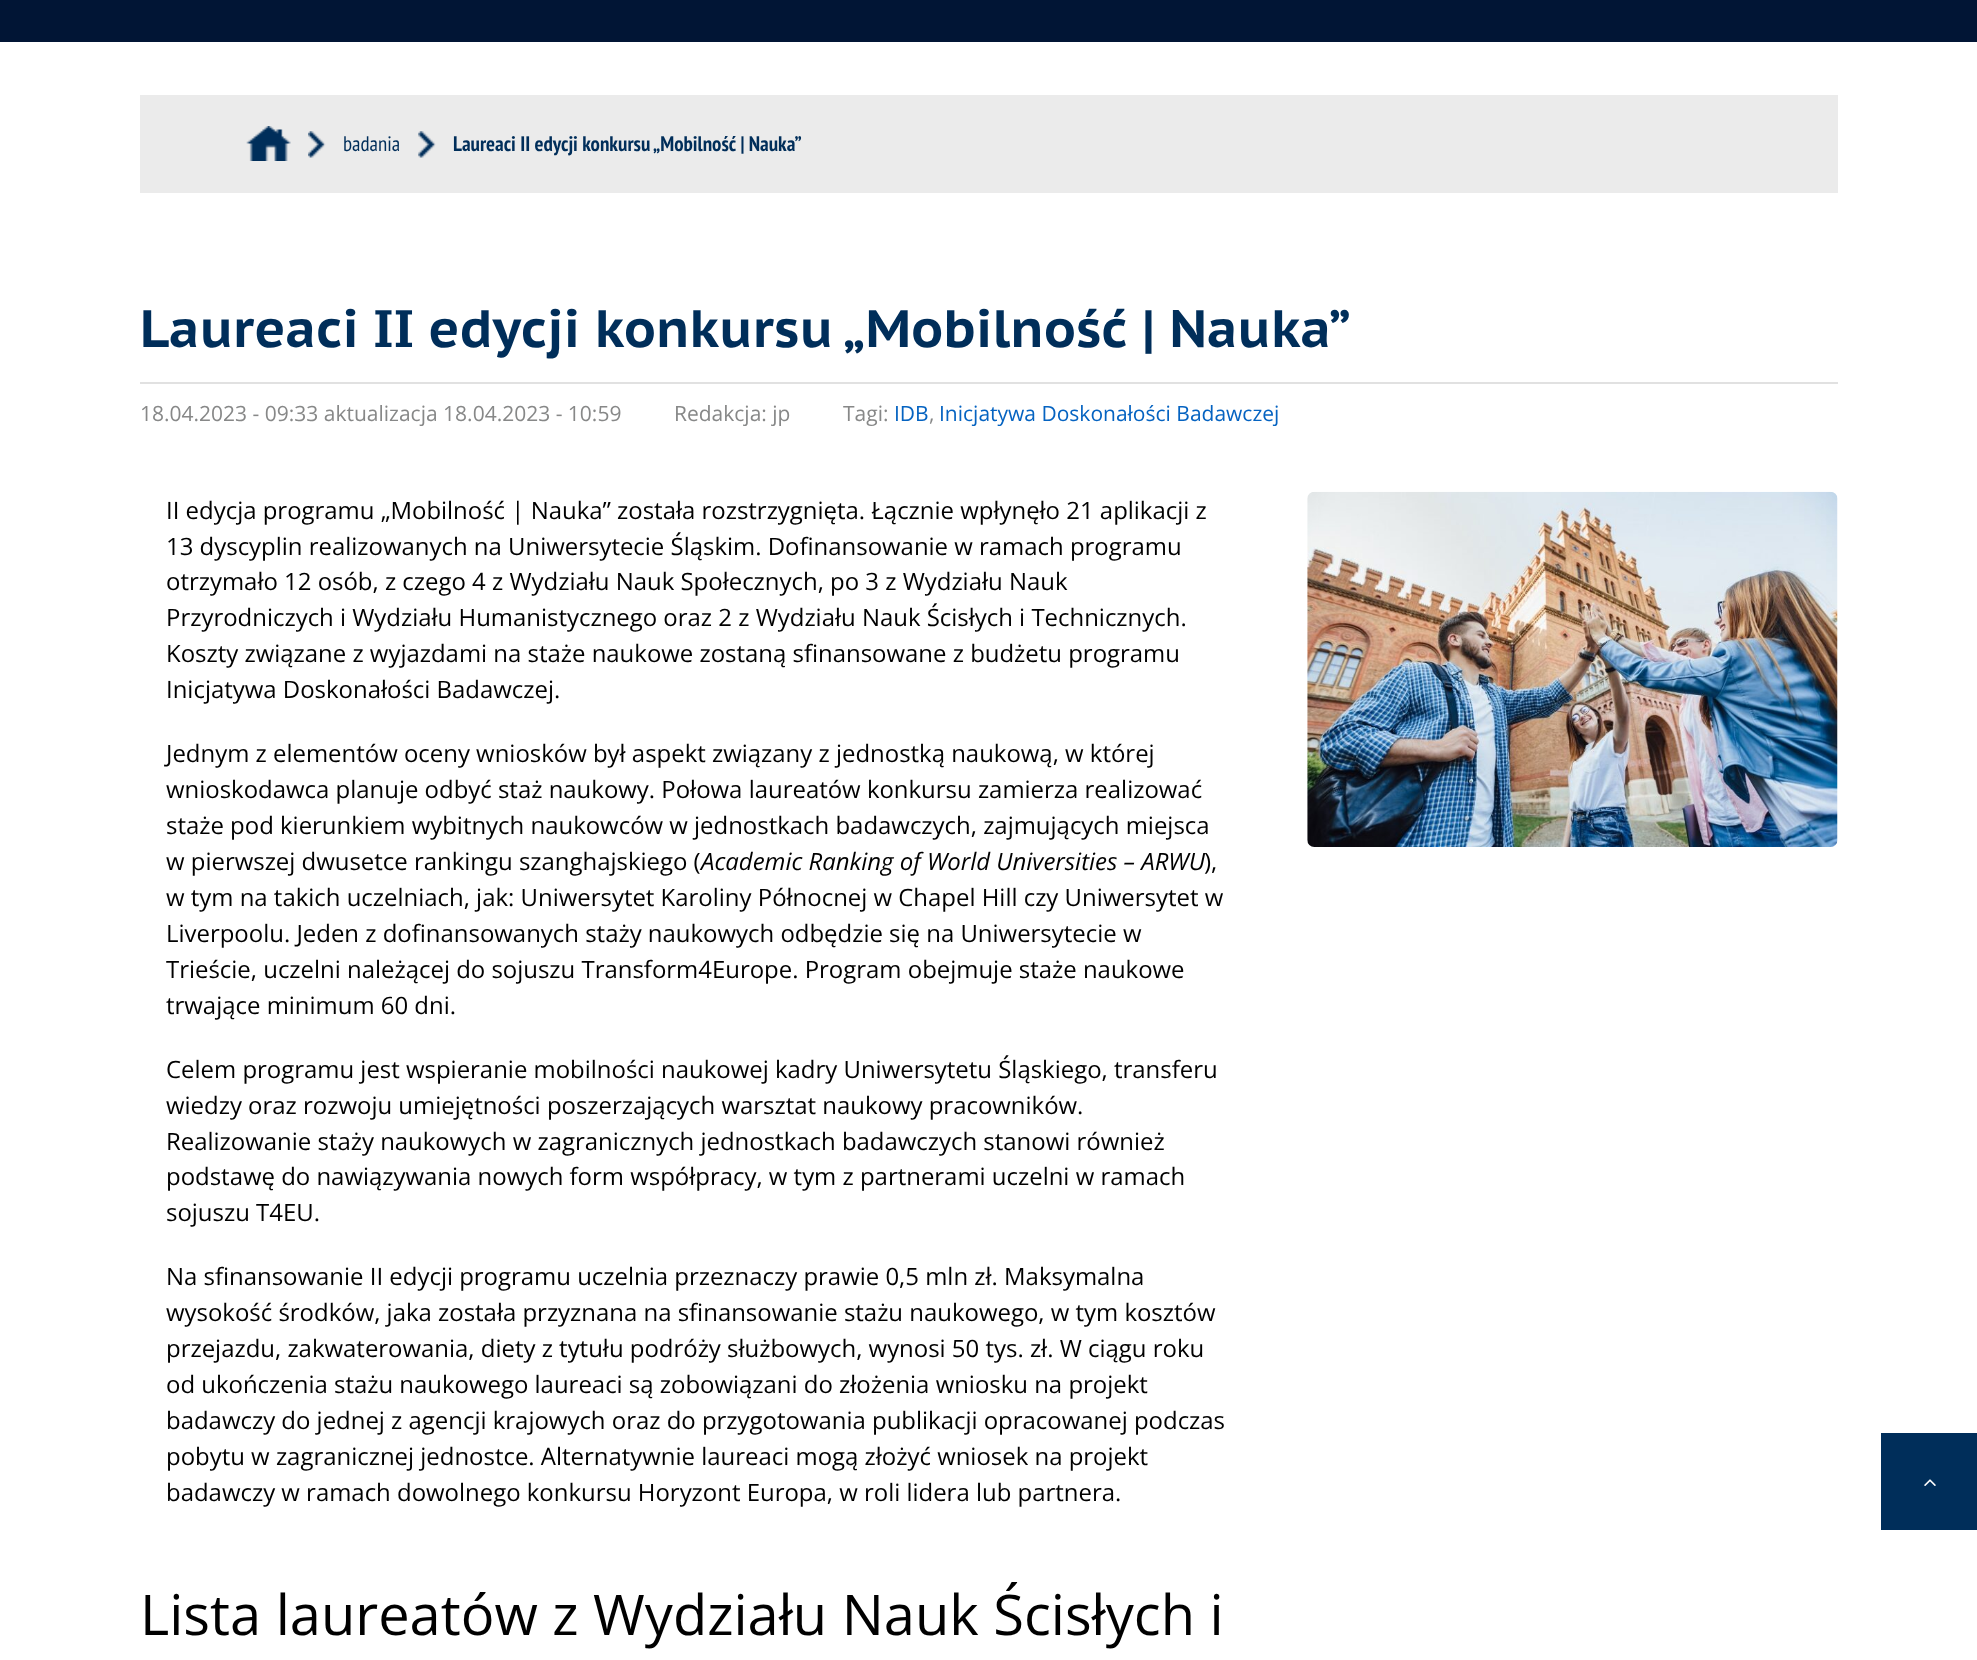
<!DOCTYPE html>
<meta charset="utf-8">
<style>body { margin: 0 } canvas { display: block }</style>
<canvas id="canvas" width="1977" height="1660"></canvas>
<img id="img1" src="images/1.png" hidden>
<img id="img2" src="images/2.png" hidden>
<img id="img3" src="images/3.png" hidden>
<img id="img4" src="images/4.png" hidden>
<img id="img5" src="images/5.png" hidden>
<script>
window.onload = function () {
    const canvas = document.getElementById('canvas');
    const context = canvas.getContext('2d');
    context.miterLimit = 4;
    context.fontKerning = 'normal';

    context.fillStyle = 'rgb(255, 255, 255)';
    context.fillRect(0, 0, 1977, 1660);
    context.fillStyle = 'rgb(1, 21, 53)';
    context.fillRect(0, 0, 1977, 42);
    context.fillStyle = 'rgb(235, 235, 235)';
    context.fillRect(140, 95, 1698, 98);
    context.drawImage(document.getElementById('img1'), 246, 126, 45, 35);
    context.drawImage(document.getElementById('img2'), 308, 131, 18, 27);
    context.drawImage(document.getElementById('img3'), 418, 131, 18, 27);
    context.fillStyle = 'rgb(225, 225, 225)';
    context.fillRect(140, 382, 1698, 2);
    context.drawImage(document.getElementById('img4'), 1307, 491, 531, 356);
    context.fillStyle = 'rgb(0, 46, 90)';
    context.fillRect(1881, 1433, 96, 97);
    context.drawImage(document.getElementById('img5'), 1924, 1479, 12, 7);
    context.font = '21px PT Sans Narrow';
    context.fillText('badania', 343, 151);
    context.font = 'bold 21px PT Sans Narrow';
    context.fillText('Laureaci II edycji konkursu „Mobilność | Nauka”', 453, 151);
    context.font = 'bold 52.5px PT Sans Caption';
    context.fillText('Laureaci II edycji konkursu „Mobilność | Nauka”', 140, 347);
    context.font = '21px Open Sans';
    context.fillStyle = 'rgb(135, 136, 136)';
    context.fillText('18.04.2023 - 09:33 aktualizacja 18.04.2023 - 10:59', 140, 421);
    context.fillText('Redakcja: jp', 674, 421);
    context.fillText('Tagi:', 843, 421);
    context.fillStyle = 'rgb(5, 99, 193)';
    context.fillText('IDB', 894, 421);
    context.fillStyle = 'rgb(135, 136, 136)';
    context.fillText(',', 929, 421);
    context.fillStyle = 'rgb(5, 99, 193)';
    context.fillText('Inicjatywa Doskonałości Badawczej', 939, 421);
    context.font = '23.95px Open Sans';
    context.fillStyle = 'rgb(0, 0, 0)';
    context.fillText('II edycja programu „Mobilność | Nauka” została rozstrzygnięta. Łącznie wpłynęło 21 aplikacji z', 166, 519);
    context.fillText('13 dyscyplin realizowanych na Uniwersytecie Śląskim. Dofinansowanie w ramach programu', 166, 555);
    context.fillText('otrzymało 12 osób, z czego 4 z Wydziału Nauk Społecznych, po 3 z Wydziału Nauk', 166, 590);
    context.fillText('Przyrodniczych i Wydziału Humanistycznego oraz 2 z Wydziału Nauk Ścisłych i Technicznych.', 166, 626);
    context.fillText('Koszty związane z wyjazdami na staże naukowe zostaną sfinansowane z budżetu programu', 166, 662);
    context.fillText('Inicjatywa Doskonałości Badawczej.', 166, 698);
    context.fillText('Jednym z elementów oceny wniosków był aspekt związany z jednostką naukową, w której', 166, 762);
    context.fillText('wnioskodawca planuje odbyć staż naukowy. Połowa laureatów konkursu zamierza realizować', 166, 798);
    context.fillText('staże pod kierunkiem wybitnych naukowców w jednostkach badawczych, zajmujących miejsca', 166, 834);
    context.fillText('w pierwszej dwusetce rankingu szanghajskiego (', 166, 870);
    context.font = 'italic 23.95px Open Sans';
    context.fillText('Academic Ranking of World Universities – ARWU', 701, 870);
    context.font = '23.95px Open Sans';
    context.fillText('),', 1204, 870);
    context.fillText('w tym na takich uczelniach, jak: Uniwersytet Karoliny Północnej w Chapel Hill czy Uniwersytet w', 166, 906);
    context.fillText('Liverpoolu. Jeden z dofinansowanych staży naukowych odbędzie się na Uniwersytecie w', 166, 942);
    context.fillText('Trieście, uczelni należącej do sojuszu Transform4Europe. Program obejmuje staże naukowe', 166, 978);
    context.fillText('trwające minimum 60 dni.', 166, 1014);
    context.fillText('Celem programu jest wspieranie mobilności naukowej kadry Uniwersytetu Śląskiego, transferu', 166, 1078);
    context.fillText('wiedzy oraz rozwoju umiejętności poszerzających warsztat naukowy pracowników.', 166, 1114);
    context.fillText('Realizowanie staży naukowych w zagranicznych jednostkach badawczych stanowi również', 166, 1150);
    context.fillText('podstawę do nawiązywania nowych form współpracy, w tym z partnerami uczelni w ramach', 166, 1185);
    context.fillText('sojuszu T4EU.', 166, 1221);
    context.fillText('Na sfinansowanie II edycji programu uczelnia przeznaczy prawie 0,5 mln zł. Maksymalna', 166, 1285);
    context.fillText('wysokość środków, jaka została przyznana na sfinansowanie stażu naukowego, w tym kosztów', 166, 1321);
    context.fillText('przejazdu, zakwaterowania, diety z tytułu podróży służbowych, wynosi 50 tys. zł. W ciągu roku', 166, 1357);
    context.fillText('od ukończenia stażu naukowego laureaci są zobowiązani do złożenia wniosku na projekt', 166, 1393);
    context.fillText('badawczy do jednej z agencji krajowych oraz do przygotowania publikacji opracowanej podczas', 166, 1429);
    context.fillText('pobytu w zagranicznej jednostce. Alternatywnie laureaci mogą złożyć wniosek na projekt', 166, 1465);
    context.fillText('badawczy w ramach dowolnego konkursu Horyzont Europa, w roli lidera lub partnera.', 166, 1501);
    context.font = '56px Open Sans';
    context.fillText('Lista laureatów z Wydziału Nauk Ścisłych i', 140, 1635);
};
</script>
